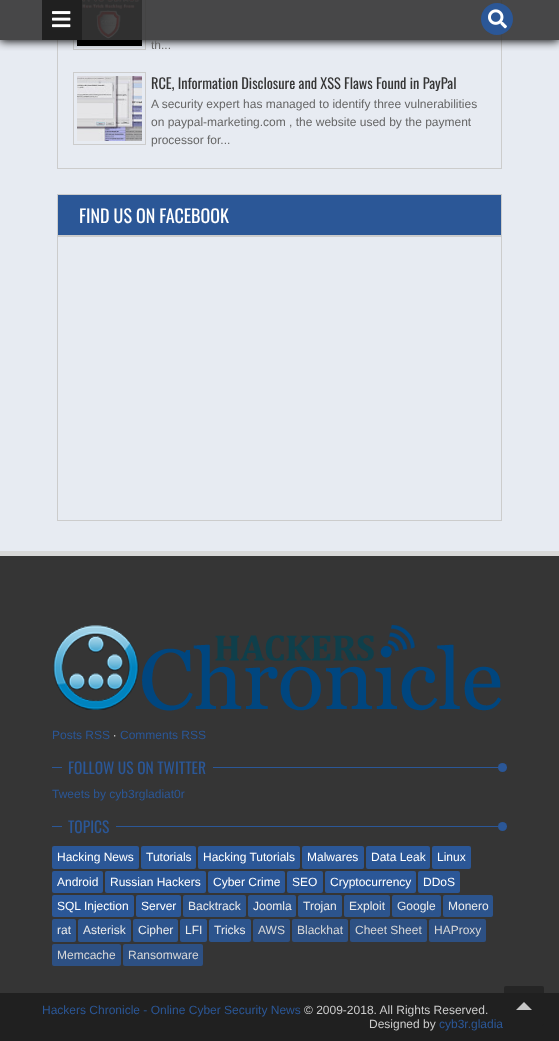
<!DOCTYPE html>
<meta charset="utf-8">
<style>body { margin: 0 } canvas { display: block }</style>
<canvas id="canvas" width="559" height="1041"></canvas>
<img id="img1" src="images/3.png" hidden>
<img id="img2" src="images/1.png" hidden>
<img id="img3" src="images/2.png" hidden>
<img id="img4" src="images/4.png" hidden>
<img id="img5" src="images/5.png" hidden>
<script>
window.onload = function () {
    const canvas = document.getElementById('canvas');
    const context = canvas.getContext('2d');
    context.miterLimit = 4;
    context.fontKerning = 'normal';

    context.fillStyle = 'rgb(231, 235, 242)';
    context.fillRect(0, 0, 559, 1041);
    context.strokeStyle = 'rgb(204, 204, 204)';
    context.strokeRect(57.5, -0.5, 444, 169);
    context.strokeRect(73.5, -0.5, 72, 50);
    context.drawImage(document.getElementById('img1'), 77, 0, 65, 46);
    context.save();
    context.beginPath();
    context.rect(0, 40, 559, 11);
    context.clip();
    context.fillStyle = 'rgb(0, 0, 0)';
    context.filter = 'blur(5px)';
    context.beginPath();
    context.rect(0, 1, 559, 40);
    context.fill();
    context.filter = 'none';
    context.restore();
    context.fillStyle = 'rgba(53, 53, 53, 0.9)';
    context.fillRect(0, 0, 559, 40);
    context.fillStyle = 'rgb(32, 32, 32)';
    context.fillRect(42, 0, 40, 40);
    context.drawImage(document.getElementById('img2'), 52, 11, 19, 17);
    context.fillStyle = 'rgb(43, 87, 151)';
    context.beginPath();
    context.arc(497, 19, 16, 0, 2 * Math.PI);
    context.fill();
    context.drawImage(document.getElementById('img3'), 488, 9, 19, 20);
    context.strokeRect(73.5, 72.5, 72, 72);
    context.drawImage(document.getElementById('img4'), 77, 76, 65, 65);
    context.beginPath();
    context.rect(57.5, 194.5, 444, 41);
    context.fill();
    context.stroke();
    context.strokeRect(57.5, 236.5, 444, 284);
    context.fillStyle = 'rgb(216, 216, 216)';
    context.fillRect(0, 551, 559, 5);
    context.fillStyle = 'rgb(53, 53, 53)';
    context.fillRect(0, 556, 559, 437);
    context.drawImage(document.getElementById('img5'), 53, 625, 449, 86);
    context.fillStyle = 'rgb(43, 87, 151)';
    context.fillRect(52, 767, 455, 1);
    context.fillStyle = 'rgb(53, 53, 53)';
    context.fillRect(62, 767, 151, 1);
    context.fillStyle = 'rgb(43, 87, 151)';
    context.beginPath();
    context.arc(502.5, 767.5, 4.5, 0, 2 * Math.PI);
    context.fill();
    context.fillRect(52, 826, 455, 1);
    context.fillStyle = 'rgb(53, 53, 53)';
    context.fillRect(62, 826, 54, 1);
    context.fillStyle = 'rgb(43, 87, 151)';
    context.beginPath();
    context.arc(502.5, 826.5, 4.5, 0, 2 * Math.PI);
    context.fill();
    context.beginPath();
    context.roundRect(52, 846, 87, 23, 2);
    context.fill();
    context.beginPath();
    context.roundRect(141, 846, 55, 23, 2);
    context.fill();
    context.beginPath();
    context.roundRect(198, 846, 102, 23, 2);
    context.fill();
    context.beginPath();
    context.roundRect(302, 846, 62, 23, 2);
    context.fill();
    context.beginPath();
    context.roundRect(366, 846, 64, 23, 2);
    context.fill();
    context.beginPath();
    context.roundRect(432, 846, 39, 23, 2);
    context.fill();
    context.beginPath();
    context.roundRect(52, 871, 51, 22, 2);
    context.fill();
    context.beginPath();
    context.roundRect(105, 871, 101, 22, 2);
    context.fill();
    context.beginPath();
    context.roundRect(208, 871, 77, 22, 2);
    context.fill();
    context.beginPath();
    context.roundRect(287, 871, 36, 22, 2);
    context.fill();
    context.beginPath();
    context.roundRect(325, 871, 91, 22, 2);
    context.fill();
    context.beginPath();
    context.roundRect(418, 871, 42, 22, 2);
    context.fill();
    context.beginPath();
    context.roundRect(52, 895, 82, 22, 2);
    context.fill();
    context.beginPath();
    context.roundRect(136, 895, 45, 22, 2);
    context.fill();
    context.fillStyle = 'rgb(44, 84, 141)';
    context.beginPath();
    context.roundRect(183, 895, 63, 22, 2);
    context.fill();
    context.beginPath();
    context.roundRect(248, 895, 48, 22, 2);
    context.fill();
    context.beginPath();
    context.roundRect(298, 895, 44, 22, 2);
    context.fill();
    context.beginPath();
    context.roundRect(344, 895, 46, 22, 2);
    context.fill();
    context.beginPath();
    context.roundRect(392, 895, 49, 22, 2);
    context.fill();
    context.beginPath();
    context.roundRect(443, 895, 50, 22, 2);
    context.fill();
    context.beginPath();
    context.roundRect(52, 919, 24, 23, 2);
    context.fill();
    context.beginPath();
    context.roundRect(78, 919, 53, 23, 2);
    context.fill();
    context.beginPath();
    context.roundRect(133, 919, 45, 23, 2);
    context.fill();
    context.beginPath();
    context.roundRect(180, 919, 27, 23, 2);
    context.fill();
    context.beginPath();
    context.roundRect(209, 919, 42, 23, 2);
    context.fill();
    context.fillStyle = 'rgb(45, 80, 131)';
    context.beginPath();
    context.roundRect(253, 919, 37, 23, 2);
    context.fill();
    context.beginPath();
    context.roundRect(292, 919, 56, 23, 2);
    context.fill();
    context.beginPath();
    context.roundRect(350, 919, 77, 23, 2);
    context.fill();
    context.beginPath();
    context.roundRect(429, 919, 57, 23, 2);
    context.fill();
    context.beginPath();
    context.roundRect(52, 944, 69, 22, 2);
    context.fill();
    context.beginPath();
    context.roundRect(123, 944, 80, 22, 2);
    context.fill();
    context.fillStyle = 'rgb(32, 32, 32)';
    context.fillRect(0, 993, 559, 48);
    context.fillStyle = 'rgba(32, 32, 32, 0.75)';
    context.beginPath();
    context.roundRect(504, 986, 40, 40, 2);
    context.fill();
    context.fillStyle = 'rgb(199, 199, 199)';
    context.beginPath();
    context.moveTo(532, 1010);
    context.lineTo(516, 1010);
    context.lineTo(524, 1002);
    context.closePath();
    context.fill();
    context.font = '12px Liberation Sans';
    context.fillStyle = 'rgb(102, 102, 102)';
    context.fillText('th...', 151, 49);
    context.font = '14.4px Oswald';
    context.fillStyle = 'rgb(53, 53, 53)';
    context.fillText('RCE, Information Disclosure and XSS Flaws Found in PayPal', 151, 89);
    context.font = '12px Liberation Sans';
    context.fillStyle = 'rgb(102, 102, 102)';
    context.fillText('A security expert has managed to identify three vulnerabilities', 151, 108);
    context.fillText('on paypal-marketing.com , the website used by the payment', 151, 126);
    context.fillText('processor for...', 151, 144);
    context.font = '18px Oswald';
    context.fillStyle = 'rgb(255, 255, 255)';
    context.fillText('FIND US ON FACEBOOK', 79, 223);
    context.font = '12px Liberation Sans';
    context.fillStyle = 'rgb(43, 87, 151)';
    context.fillText('Posts RSS', 52, 739);
    context.fillStyle = 'rgb(204, 204, 204)';
    context.fillText('∙', 113, 739);
    context.fillStyle = 'rgb(43, 87, 151)';
    context.fillText('Comments RSS', 120, 739);
    context.font = '15.5px Oswald';
    context.fillText('FOLLOW US ON TWITTER', 68, 774);
    context.font = '12px Liberation Sans';
    context.fillText('Tweets by cyb3rgladiat0r', 52, 798);
    context.font = '15.5px Oswald';
    context.fillText('TOPICS', 68, 833);
    context.font = '12px Liberation Sans';
    context.fillStyle = 'rgb(255, 255, 255)';
    context.fillText('Hacking News', 57, 861);
    context.fillText('Tutorials', 146, 861);
    context.fillText('Hacking Tutorials', 203, 861);
    context.fillText('Malwares', 307, 861);
    context.fillText('Data Leak', 371, 861);
    context.fillText('Linux', 437, 861);
    context.fillText('Android', 57, 886);
    context.fillText('Russian Hackers', 110, 886);
    context.fillText('Cyber Crime', 213, 886);
    context.fillText('SEO', 292, 886);
    context.fillText('Cryptocurrency', 330, 886);
    context.fillText('DDoS', 423, 886);
    context.fillText('SQL Injection', 57, 910);
    context.fillText('Server', 141, 910);
    context.fillStyle = 'rgb(235, 235, 235)';
    context.fillText('Backtrack', 188, 910);
    context.fillText('Joomla', 253, 910);
    context.fillText('Trojan', 303, 910);
    context.fillText('Exploit', 349, 910);
    context.fillText('Google', 397, 910);
    context.fillText('Monero', 448, 910);
    context.fillText('rat', 57, 934);
    context.fillText('Asterisk', 83, 934);
    context.fillText('Cipher', 138, 934);
    context.fillText('LFI', 185, 934);
    context.fillText('Tricks', 214, 934);
    context.fillStyle = 'rgb(215, 215, 215)';
    context.fillText('AWS', 258, 934);
    context.fillText('Blackhat', 297, 934);
    context.fillText('Cheet Sheet', 355, 934);
    context.fillText('HAProxy', 434, 934);
    context.fillText('Memcache', 57, 959);
    context.fillText('Ransomware', 128, 959);
    context.fillStyle = 'rgb(43, 87, 151)';
    context.fillText('Hackers Chronicle - Online Cyber Security News', 42, 1014);
    context.fillStyle = 'rgb(204, 204, 204)';
    context.fillText('© 2009-2018. All Rights Reserved.', 304, 1014);
    context.fillText('Designed by', 369, 1028);
    context.fillStyle = 'rgb(43, 87, 151)';
    context.fillText('cyb3r.gladia', 439, 1028);
};
</script>
